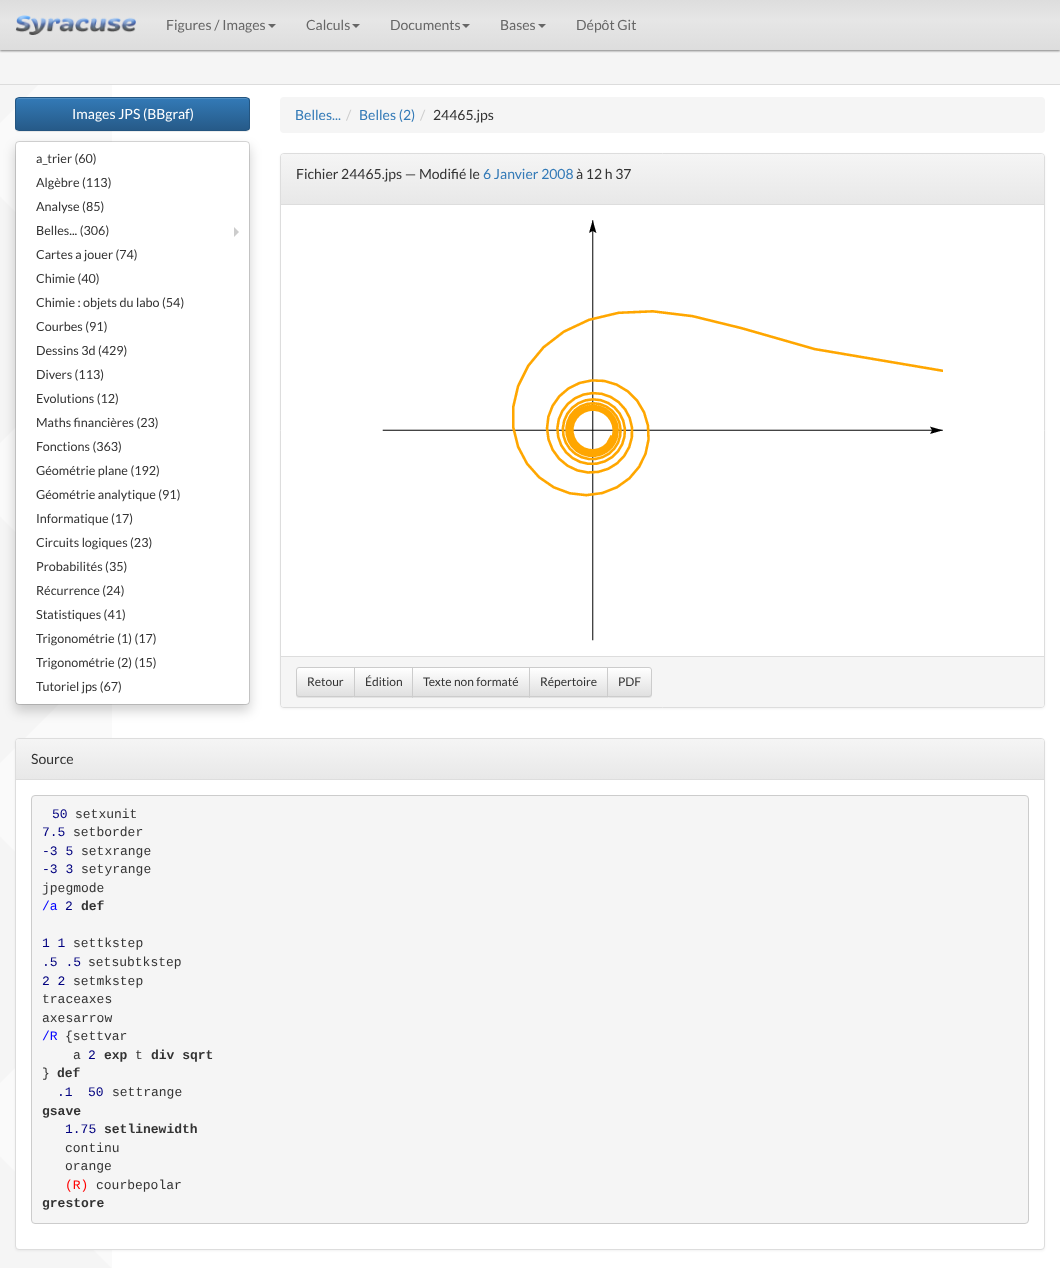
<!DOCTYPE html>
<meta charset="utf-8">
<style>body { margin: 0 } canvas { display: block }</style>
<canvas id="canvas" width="1060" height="1268"></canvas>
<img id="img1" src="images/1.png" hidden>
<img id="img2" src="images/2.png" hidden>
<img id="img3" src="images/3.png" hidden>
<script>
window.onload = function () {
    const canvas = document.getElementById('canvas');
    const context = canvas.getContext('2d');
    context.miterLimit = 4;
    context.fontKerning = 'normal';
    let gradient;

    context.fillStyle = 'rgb(255, 255, 255)';
    context.fillRect(0, 0, 1060, 1268);
    context.drawImage(document.getElementById('img1'), 0, 85, 112, 1183);
    context.fillStyle = 'rgb(245, 245, 245)';
    context.fillRect(0, 50, 1060, 34);
    context.fillStyle = 'rgb(128, 128, 128)';
    context.filter = 'blur(1px)';
    context.beginPath();
    context.rect(0, 1, 1060, 50);
    context.fill();
    context.filter = 'none';
    gradient = context.createLinearGradient(530, 0, 530, 50);
    gradient.addColorStop(0, 'rgb(221, 221, 221)');
    gradient.addColorStop(0.4, 'rgb(230, 230, 230)');
    gradient.addColorStop(1, 'rgb(221, 221, 221)');
    context.fillStyle = gradient;
    context.fillRect(0, 0, 1060, 50);
    context.drawImage(document.getElementById('img2'), 15, 15, 121, 20);
    context.fillStyle = 'rgb(102, 102, 102)';
    context.beginPath();
    context.moveTo(268, 24);
    context.lineTo(276, 24);
    context.lineTo(272, 28);
    context.closePath();
    context.fill();
    context.beginPath();
    context.moveTo(352, 24);
    context.lineTo(360, 24);
    context.lineTo(356, 28);
    context.closePath();
    context.fill();
    context.beginPath();
    context.moveTo(462, 24);
    context.lineTo(470, 24);
    context.lineTo(466, 28);
    context.closePath();
    context.fill();
    context.beginPath();
    context.moveTo(538, 24);
    context.lineTo(546, 24);
    context.lineTo(542, 28);
    context.closePath();
    context.fill();
    context.fillStyle = 'rgb(220, 220, 220)';
    context.fillRect(0, 84, 1060, 1);
    context.fillStyle = 'rgba(0, 0, 0, 0.07)';
    context.filter = 'blur(0.5px)';
    context.beginPath();
    context.roundRect(15, 98, 235, 34, 4);
    context.fill();
    context.filter = 'none';
    context.save();
    context.beginPath();
    context.roundRect(15, 97, 235, 34, 4);
    context.clip();
    gradient = context.createLinearGradient(133, 98, 133, 130);
    gradient.addColorStop(0, 'rgb(51, 122, 183)');
    gradient.addColorStop(1, 'rgb(38, 90, 136)');
    context.fillStyle = gradient;
    context.fillRect(15, 98, 235, 32);
    context.restore();
    context.fillStyle = 'rgb(82, 142, 193)';
    context.beginPath();
    context.moveTo(19, 99);
    context.lineTo(246, 99);
    context.bezierCurveTo(248, 99, 249, 100, 249, 102);
    context.bezierCurveTo(249, 100, 248, 98, 246, 98);
    context.lineTo(19, 98);
    context.bezierCurveTo(17, 98, 16, 100, 16, 102);
    context.bezierCurveTo(16, 100, 17, 99, 19, 99);
    context.closePath();
    context.fill();
    context.beginPath();
    context.roundRect(15.5, 97.5, 234, 33, 3.5);
    context.strokeStyle = 'rgb(36, 85, 128)';
    context.stroke();
    context.fillStyle = 'rgba(0, 0, 0, 0.18)';
    context.filter = 'blur(6px)';
    context.beginPath();
    context.roundRect(15, 147, 235, 564, 4);
    context.fill();
    context.filter = 'none';
    context.fillStyle = 'rgb(255, 255, 255)';
    context.beginPath();
    context.roundRect(16, 142, 233, 562, 3);
    context.fill();
    context.beginPath();
    context.roundRect(15.5, 141.5, 234, 563, 3.5);
    context.strokeStyle = 'rgba(0, 0, 0, 0.15)';
    context.stroke();
    context.fillStyle = 'rgb(204, 204, 204)';
    context.beginPath();
    context.moveTo(234, 237);
    context.lineTo(234, 227);
    context.lineTo(239, 232);
    context.closePath();
    context.fill();
    context.fillStyle = 'rgb(245, 245, 245)';
    context.beginPath();
    context.roundRect(280, 97, 765, 36, 4);
    context.fill();
    context.fillStyle = 'rgba(0, 0, 0, 0.05)';
    context.filter = 'blur(1px)';
    context.beginPath();
    context.roundRect(280, 154, 765, 555, 4);
    context.fill();
    context.filter = 'none';
    context.fillStyle = 'rgb(255, 255, 255)';
    context.beginPath();
    context.roundRect(280.5, 153.5, 764, 554, 3.5);
    context.fill();
    context.strokeStyle = 'rgb(221, 221, 221)';
    context.stroke();
    gradient = context.createLinearGradient(663, 154, 663, 204);
    gradient.addColorStop(0, 'rgb(245, 245, 245)');
    gradient.addColorStop(1, 'rgb(232, 232, 232)');
    context.fillStyle = gradient;
    context.beginPath();
    context.roundRect(281, 154, 763, 50, [3, 3, 0, 0]);
    context.fill();
    context.fillStyle = 'rgb(221, 221, 221)';
    context.fillRect(281, 204, 763, 1);
    context.drawImage(document.getElementById('img3'), 382, 220, 561, 421);
    context.fillStyle = 'rgb(245, 245, 245)';
    context.beginPath();
    context.roundRect(281, 656, 763, 51, [0, 0, 3, 3]);
    context.fill();
    context.fillStyle = 'rgb(221, 221, 221)';
    context.fillRect(281, 656, 763, 1);
    context.fillStyle = 'rgba(0, 0, 0, 0.07)';
    context.filter = 'blur(0.5px)';
    context.beginPath();
    context.roundRect(296, 668, 59, 30, 3);
    context.fill();
    context.filter = 'none';
    context.save();
    context.beginPath();
    context.roundRect(296, 667, 59, 30, [3, 0, 0, 3]);
    context.clip();
    gradient = context.createLinearGradient(326, 668, 326, 696);
    gradient.addColorStop(0, 'rgb(255, 255, 255)');
    gradient.addColorStop(1, 'rgb(224, 224, 224)');
    context.fillStyle = gradient;
    context.fillRect(296, 668, 58, 28);
    context.restore();
    context.beginPath();
    context.roundRect(296.5, 667.5, 58, 29, [2.5, 0, 0, 2.5]);
    context.strokeStyle = 'rgb(204, 204, 204)';
    context.stroke();
    context.filter = 'blur(0.5px)';
    context.beginPath();
    context.rect(354, 668, 59, 30);
    context.fill();
    context.filter = 'none';
    gradient = context.createLinearGradient(384, 668, 384, 696);
    gradient.addColorStop(0, 'rgb(255, 255, 255)');
    gradient.addColorStop(1, 'rgb(224, 224, 224)');
    context.fillStyle = gradient;
    context.fillRect(355, 668, 57, 28);
    context.strokeRect(354.5, 667.5, 58, 29);
    context.fillStyle = 'rgba(0, 0, 0, 0.07)';
    context.filter = 'blur(0.5px)';
    context.beginPath();
    context.rect(412, 668, 118, 30);
    context.fill();
    context.filter = 'none';
    gradient = context.createLinearGradient(471, 668, 471, 696);
    gradient.addColorStop(0, 'rgb(255, 255, 255)');
    gradient.addColorStop(1, 'rgb(224, 224, 224)');
    context.fillStyle = gradient;
    context.fillRect(413, 668, 116, 28);
    context.strokeRect(412.5, 667.5, 117, 29);
    context.fillStyle = 'rgba(0, 0, 0, 0.07)';
    context.filter = 'blur(0.5px)';
    context.beginPath();
    context.rect(529, 668, 79, 30);
    context.fill();
    context.filter = 'none';
    gradient = context.createLinearGradient(569, 668, 569, 696);
    gradient.addColorStop(0, 'rgb(255, 255, 255)');
    gradient.addColorStop(1, 'rgb(224, 224, 224)');
    context.fillStyle = gradient;
    context.fillRect(530, 668, 77, 28);
    context.strokeRect(529.5, 667.5, 78, 29);
    context.fillStyle = 'rgba(0, 0, 0, 0.07)';
    context.filter = 'blur(0.5px)';
    context.beginPath();
    context.roundRect(607, 668, 45, 30, 3);
    context.fill();
    context.filter = 'none';
    context.save();
    context.beginPath();
    context.roundRect(607, 667, 45, 30, [0, 3, 3, 0]);
    context.clip();
    gradient = context.createLinearGradient(630, 668, 630, 696);
    gradient.addColorStop(0, 'rgb(255, 255, 255)');
    gradient.addColorStop(1, 'rgb(224, 224, 224)');
    context.fillStyle = gradient;
    context.fillRect(608, 668, 44, 28);
    context.restore();
    context.beginPath();
    context.roundRect(607.5, 667.5, 44, 29, [0, 2.5, 2.5, 0]);
    context.stroke();
    context.fillStyle = 'rgba(0, 0, 0, 0.05)';
    context.filter = 'blur(1px)';
    context.beginPath();
    context.roundRect(15, 739, 1030, 512, 4);
    context.fill();
    context.filter = 'none';
    context.fillStyle = 'rgb(255, 255, 255)';
    context.beginPath();
    context.roundRect(15.5, 738.5, 1029, 511, 3.5);
    context.fill();
    context.strokeStyle = 'rgb(221, 221, 221)';
    context.stroke();
    gradient = context.createLinearGradient(530, 739, 530, 779);
    gradient.addColorStop(0, 'rgb(245, 245, 245)');
    gradient.addColorStop(1, 'rgb(232, 232, 232)');
    context.fillStyle = gradient;
    context.beginPath();
    context.roundRect(16, 739, 1028, 40, [3, 3, 0, 0]);
    context.fill();
    context.fillStyle = 'rgb(221, 221, 221)';
    context.fillRect(16, 779, 1028, 1);
    context.fillStyle = 'rgb(245, 245, 245)';
    context.beginPath();
    context.roundRect(31.5, 795.5, 997, 428, 3.5);
    context.fill();
    context.strokeStyle = 'rgb(204, 204, 204)';
    context.stroke();
    context.font = '14px Lato';
    context.fillStyle = 'rgb(102, 102, 102)';
    context.fillText('Figures / Images', 166, 30);
    context.fillText('Calculs', 306, 30);
    context.fillText('Documents', 390, 30);
    context.fillText('Bases', 500, 30);
    context.fillText('Dépôt Git', 576, 30);
    context.fillStyle = 'rgb(255, 255, 255)';
    context.fillText('Images JPS (BBgraf)', 72, 119);
    context.font = '12.6px Lato';
    context.fillStyle = 'rgb(51, 51, 51)';
    context.fillText('a_trier (60)', 36, 163);
    context.fillText('Algèbre (113)', 36, 187);
    context.fillText('Analyse (85)', 36, 211);
    context.fillText('Belles... (306)', 36, 235);
    context.fillText('Cartes a jouer (74)', 36, 259);
    context.fillText('Chimie (40)', 36, 283);
    context.fillText('Chimie : objets du labo (54)', 36, 307);
    context.fillText('Courbes (91)', 36, 331);
    context.fillText('Dessins 3d (429)', 36, 355);
    context.fillText('Divers (113)', 36, 379);
    context.fillText('Evolutions (12)', 36, 403);
    context.fillText('Maths financières (23)', 36, 427);
    context.fillText('Fonctions (363)', 36, 451);
    context.fillText('Géométrie plane (192)', 36, 475);
    context.fillText('Géométrie analytique (91)', 36, 499);
    context.fillText('Informatique (17)', 36, 523);
    context.fillText('Circuits logiques (23)', 36, 547);
    context.fillText('Probabilités (35)', 36, 571);
    context.fillText('Récurrence (24)', 36, 595);
    context.fillText('Statistiques (41)', 36, 619);
    context.fillText('Trigonométrie (1) (17)', 36, 643);
    context.fillText('Trigonométrie (2) (15)', 36, 667);
    context.fillText('Tutoriel jps (67)', 36, 691);
    context.font = '14px Lato';
    context.fillStyle = 'rgb(51, 122, 183)';
    context.fillText('Belles...', 295, 120);
    context.fillStyle = 'rgb(204, 204, 204)';
    context.fillText('/', 346, 120);
    context.fillStyle = 'rgb(51, 122, 183)';
    context.fillText('Belles (2)', 359, 120);
    context.fillStyle = 'rgb(204, 204, 204)';
    context.fillText('/', 420, 120);
    context.fillStyle = 'rgb(51, 51, 51)';
    context.fillText('24465.jps', 433, 120);
    context.fillText('Fichier 24465.jps — Modifié le', 296, 179);
    context.fillStyle = 'rgb(51, 122, 183)';
    context.fillText('6 Janvier 2008', 483, 179);
    context.fillStyle = 'rgb(51, 51, 51)';
    context.fillText('à 12 h 37', 576, 179);
    context.font = '12px Lato';
    context.fillText('Retour', 307, 686);
    context.fillText('Édition', 365, 686);
    context.fillText('Texte non formaté', 423, 686);
    context.fillText('Répertoire', 540, 686);
    context.fillText('PDF', 618, 686);
    context.font = '14px Lato';
    context.fillText('Source', 31, 764);
    context.font = '13px Liberation Mono';
    context.fillStyle = 'rgb(0, 0, 127)';
    context.fillText('50', 52, 818);
    context.fillStyle = 'rgb(51, 51, 51)';
    context.fillText('setxunit', 75, 818);
    context.fillStyle = 'rgb(0, 0, 127)';
    context.fillText('7.5', 42, 836);
    context.fillStyle = 'rgb(51, 51, 51)';
    context.fillText('setborder', 73, 836);
    context.fillStyle = 'rgb(0, 0, 127)';
    context.fillText('-3 5', 42, 855);
    context.fillStyle = 'rgb(51, 51, 51)';
    context.fillText('setxrange', 81, 855);
    context.fillStyle = 'rgb(0, 0, 127)';
    context.fillText('-3 3', 42, 873);
    context.fillStyle = 'rgb(51, 51, 51)';
    context.fillText('setyrange', 81, 873);
    context.fillText('jpegmode', 42, 892);
    context.fillStyle = 'rgb(0, 0, 255)';
    context.fillText('/a', 42, 910);
    context.fillStyle = 'rgb(0, 0, 127)';
    context.fillText('2', 65, 910);
    context.font = 'bold 13px Liberation Mono';
    context.fillStyle = 'rgb(51, 51, 51)';
    context.fillText('def', 81, 910);
    context.font = '13px Liberation Mono';
    context.fillStyle = 'rgb(0, 0, 127)';
    context.fillText('1 1', 42, 947);
    context.fillStyle = 'rgb(51, 51, 51)';
    context.fillText('settkstep', 73, 947);
    context.fillStyle = 'rgb(0, 0, 127)';
    context.fillText('.5 .5', 42, 966);
    context.fillStyle = 'rgb(51, 51, 51)';
    context.fillText('setsubtkstep', 88, 966);
    context.fillStyle = 'rgb(0, 0, 127)';
    context.fillText('2 2', 42, 985);
    context.fillStyle = 'rgb(51, 51, 51)';
    context.fillText('setmkstep', 73, 985);
    context.fillText('traceaxes', 42, 1003);
    context.fillText('axesarrow', 42, 1022);
    context.fillStyle = 'rgb(0, 0, 255)';
    context.fillText('/R', 42, 1040);
    context.fillStyle = 'rgb(51, 51, 51)';
    context.fillText('{settvar', 65, 1040);
    context.fillText('a', 73, 1059);
    context.fillStyle = 'rgb(0, 0, 127)';
    context.fillText('2', 88, 1059);
    context.font = 'bold 13px Liberation Mono';
    context.fillStyle = 'rgb(51, 51, 51)';
    context.fillText('exp', 104, 1059);
    context.font = '13px Liberation Mono';
    context.fillText('t', 135, 1059);
    context.font = 'bold 13px Liberation Mono';
    context.fillText('div sqrt', 151, 1059);
    context.font = '13px Liberation Mono';
    context.fillText('}', 42, 1077);
    context.font = 'bold 13px Liberation Mono';
    context.fillText('def', 57, 1077);
    context.font = '13px Liberation Mono';
    context.fillStyle = 'rgb(0, 0, 127)';
    context.fillText('.1', 57, 1096);
    context.fillText('50', 88, 1096);
    context.fillStyle = 'rgb(51, 51, 51)';
    context.fillText('settrange', 112, 1096);
    context.font = 'bold 13px Liberation Mono';
    context.fillText('gsave', 42, 1115);
    context.font = '13px Liberation Mono';
    context.fillStyle = 'rgb(0, 0, 127)';
    context.fillText('1.75', 65, 1133);
    context.font = 'bold 13px Liberation Mono';
    context.fillStyle = 'rgb(51, 51, 51)';
    context.fillText('setlinewidth', 104, 1133);
    context.font = '13px Liberation Mono';
    context.fillText('continu', 65, 1152);
    context.fillText('orange', 65, 1170);
    context.fillStyle = 'rgb(255, 0, 0)';
    context.fillText('(R)', 65, 1189);
    context.fillStyle = 'rgb(51, 51, 51)';
    context.fillText('courbepolar', 96, 1189);
    context.font = 'bold 13px Liberation Mono';
    context.fillText('grestore', 42, 1207);
};
</script>
